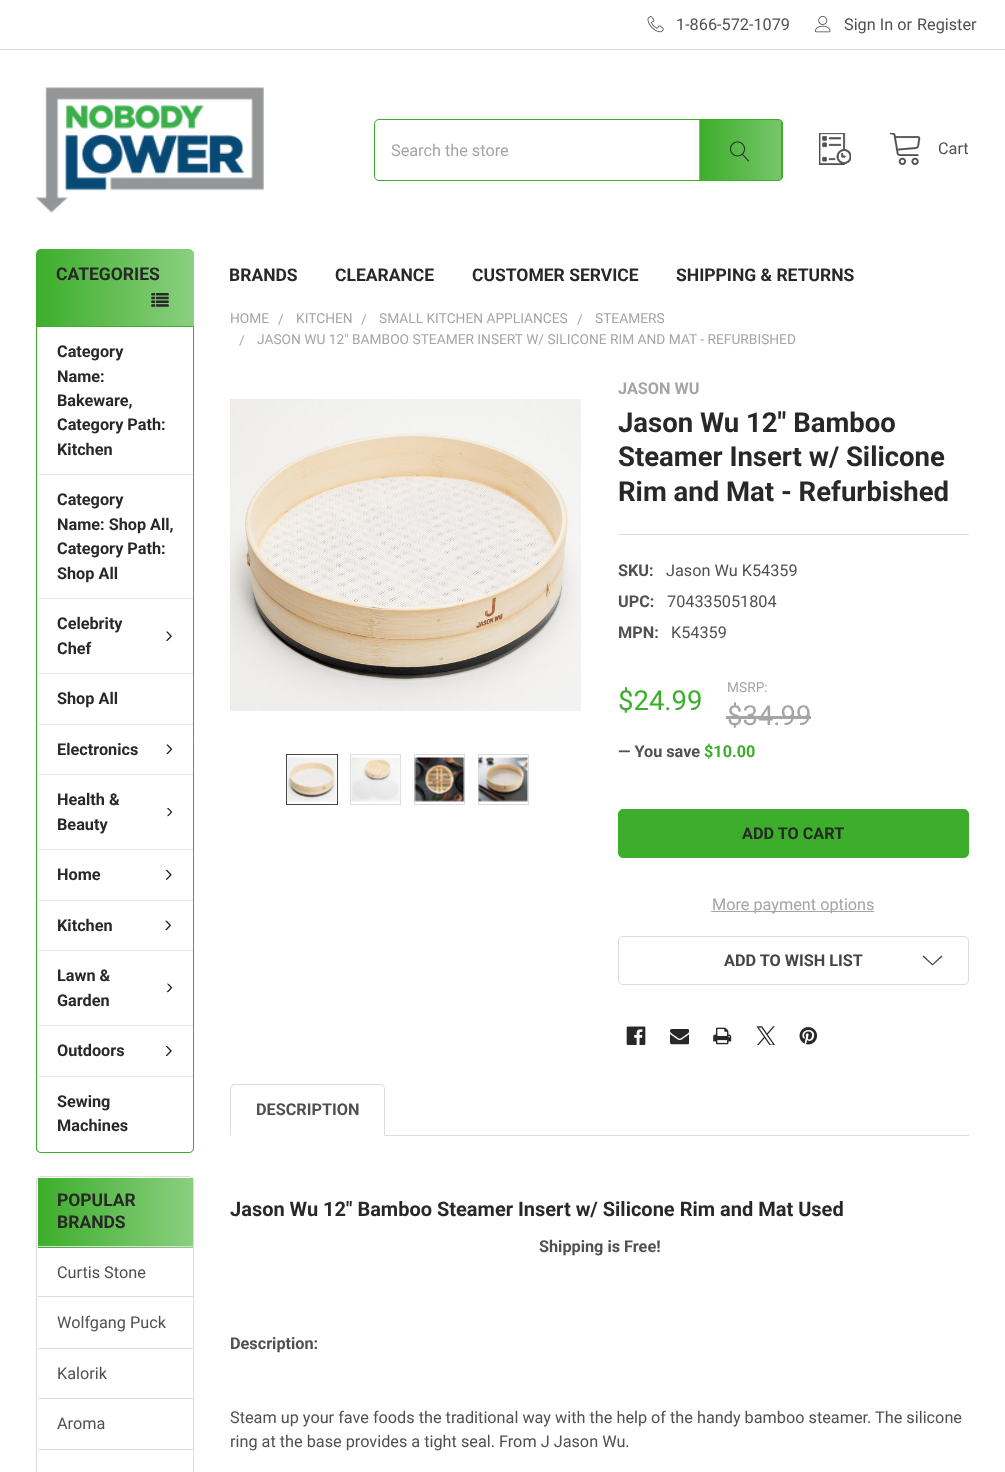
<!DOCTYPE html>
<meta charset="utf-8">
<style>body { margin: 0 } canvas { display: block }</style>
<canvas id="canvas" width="1005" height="1472"></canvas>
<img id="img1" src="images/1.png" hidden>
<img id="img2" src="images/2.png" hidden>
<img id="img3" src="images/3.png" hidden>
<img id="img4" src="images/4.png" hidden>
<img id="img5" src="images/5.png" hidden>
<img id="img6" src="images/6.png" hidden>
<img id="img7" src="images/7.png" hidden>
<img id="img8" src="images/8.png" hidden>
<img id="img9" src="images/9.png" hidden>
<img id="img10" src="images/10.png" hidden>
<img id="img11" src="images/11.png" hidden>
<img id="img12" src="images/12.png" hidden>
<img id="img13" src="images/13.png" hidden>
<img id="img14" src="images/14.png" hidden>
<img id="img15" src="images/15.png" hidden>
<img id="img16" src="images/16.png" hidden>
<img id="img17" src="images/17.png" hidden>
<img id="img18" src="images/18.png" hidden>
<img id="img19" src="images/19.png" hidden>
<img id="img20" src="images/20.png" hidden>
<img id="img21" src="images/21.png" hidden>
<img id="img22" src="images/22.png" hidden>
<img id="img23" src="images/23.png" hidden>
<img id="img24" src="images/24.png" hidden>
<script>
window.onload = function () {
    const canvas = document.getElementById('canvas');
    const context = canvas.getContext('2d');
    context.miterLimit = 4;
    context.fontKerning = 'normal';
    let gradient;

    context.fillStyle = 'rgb(255, 255, 255)';
    context.fillRect(0, 0, 1005, 1472);
    context.fillStyle = 'rgb(220, 220, 220)';
    context.fillRect(0, 49, 1005, 1);
    context.drawImage(document.getElementById('img1'), 647, 16, 17, 17);
    context.drawImage(document.getElementById('img2'), 815, 16, 16, 17);
    context.drawImage(document.getElementById('img3'), 36, 87, 228, 126);
    context.beginPath();
    context.roundRect(374.5, 119.5, 408, 61, 4.5);
    context.strokeStyle = 'rgb(61, 174, 43)';
    context.stroke();
    gradient = context.createLinearGradient(619, 150, 700, 150);
    gradient.addColorStop(0, 'rgb(61, 174, 43)');
    gradient.addColorStop(1, 'rgba(61, 174, 43, 0.7)');
    context.fillStyle = gradient;
    context.fillRect(699, 119, 1, 62);
    context.save();
    context.beginPath();
    context.roundRect(699, 119, 84, 62, [0, 5, 5, 0]);
    context.clip();
    gradient = context.createLinearGradient(700, 150, 781, 150);
    gradient.addColorStop(0, 'rgb(61, 174, 43)');
    gradient.addColorStop(1, 'rgba(61, 174, 43, 0.7)');
    context.fillStyle = gradient;
    context.fillRect(700, 119, 81, 62);
    gradient = context.createLinearGradient(781, 150, 863, 150);
    gradient.addColorStop(0, 'rgb(61, 174, 43)');
    gradient.addColorStop(1, 'rgba(61, 174, 43, 0.7)');
    context.fillStyle = gradient;
    context.fillRect(781, 119, 2, 62);
    context.restore();
    context.drawImage(document.getElementById('img4'), 730, 141, 19, 21);
    context.drawImage(document.getElementById('img5'), 819, 133, 32, 32);
    context.drawImage(document.getElementById('img6'), 889, 133, 32, 32);
    gradient = context.createLinearGradient(36, 701, 194, 701);
    gradient.addColorStop(0, 'rgb(61, 174, 43)');
    gradient.addColorStop(1, 'rgb(139, 207, 128)');
    context.fillStyle = gradient;
    context.beginPath();
    context.roundRect(36, 249, 158, 904, 5);
    context.fill();
    context.drawImage(document.getElementById('img7'), 151, 293, 18, 14);
    context.fillStyle = 'rgb(255, 255, 255)';
    context.beginPath();
    context.roundRect(36.5, 326.5, 157, 826, [0, 0, 4.5, 4.5]);
    context.fill();
    context.stroke();
    context.fillStyle = 'rgb(230, 230, 230)';
    context.fillRect(38, 474, 155, 1);
    context.fillRect(38, 598, 155, 1);
    context.drawImage(document.getElementById('img8'), 166, 631, 6, 10);
    context.fillRect(38, 673, 155, 1);
    context.fillRect(38, 724, 155, 1);
    context.drawImage(document.getElementById('img9'), 166, 744, 7, 11);
    context.fillRect(38, 774, 155, 1);
    context.drawImage(document.getElementById('img10'), 167, 807, 6, 10);
    context.fillRect(38, 849, 155, 1);
    context.drawImage(document.getElementById('img11'), 165, 870, 7, 10);
    context.fillRect(38, 900, 155, 1);
    context.drawImage(document.getElementById('img12'), 165, 920, 7, 11);
    context.fillRect(38, 950, 155, 1);
    context.drawImage(document.getElementById('img13'), 166, 983, 7, 10);
    context.fillRect(38, 1025, 155, 1);
    context.drawImage(document.getElementById('img14'), 165, 1046, 7, 10);
    context.fillRect(38, 1076, 155, 1);
    context.beginPath();
    context.roundRect(36.5, 1176.5, 157, 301, 4.5);
    context.strokeStyle = 'rgb(220, 220, 220)';
    context.stroke();
    gradient = context.createLinearGradient(38, 1212, 193, 1212);
    gradient.addColorStop(0, 'rgb(61, 174, 43)');
    gradient.addColorStop(1, 'rgba(61, 174, 43, 0.6)');
    context.fillStyle = gradient;
    context.fillRect(38, 1178, 155, 70);
    context.fillStyle = 'rgb(220, 220, 220)';
    context.fillRect(38, 1246, 155, 1);
    context.fillRect(38, 1296, 155, 1);
    context.fillRect(38, 1348, 155, 1);
    context.fillRect(38, 1398, 155, 1);
    context.fillRect(38, 1449, 155, 1);
    context.drawImage(document.getElementById('img15'), 230, 399, 351, 312);
    context.strokeStyle = 'rgb(69, 69, 69)';
    context.strokeRect(286.5, 754.5, 51, 50);
    context.drawImage(document.getElementById('img16'), 287, 757, 50, 45);
    context.strokeStyle = 'rgb(220, 220, 220)';
    context.strokeRect(350.5, 754.5, 50, 50);
    context.drawImage(document.getElementById('img17'), 351, 757, 50, 45);
    context.strokeRect(414.5, 754.5, 50, 50);
    context.drawImage(document.getElementById('img18'), 414, 757, 51, 45);
    context.strokeRect(478.5, 754.5, 50, 50);
    context.drawImage(document.getElementById('img19'), 478, 757, 50, 45);
    context.fillRect(618, 534, 351, 1);
    context.fillStyle = 'rgb(165, 165, 165)';
    context.fillRect(726, 716, 85, 3);
    context.fillStyle = 'rgb(61, 174, 43)';
    context.beginPath();
    context.roundRect(618.5, 809.5, 350, 48, 4.5);
    context.fill();
    context.strokeStyle = 'rgb(61, 174, 43)';
    context.stroke();
    context.fillStyle = 'rgb(165, 165, 165)';
    context.fillRect(711, 911, 163, 1);
    context.beginPath();
    context.roundRect(618.5, 936.5, 350, 48, 4.5);
    context.strokeStyle = 'rgb(220, 220, 220)';
    context.stroke();
    context.fillStyle = 'rgb(69, 69, 69)';
    context.beginPath();
    context.moveTo(932.5, 964);
    context.lineTo(941.5, 955.5);
    context.lineTo(942.5, 956.5);
    context.lineTo(932.5, 965.5);
    context.lineTo(922.5, 956.5);
    context.lineTo(923.5, 955.5);
    context.closePath();
    context.fill('evenodd');
    context.drawImage(document.getElementById('img20'), 626, 1026, 20, 19);
    context.drawImage(document.getElementById('img21'), 670, 1029, 19, 16);
    context.drawImage(document.getElementById('img22'), 713, 1027, 19, 18);
    context.drawImage(document.getElementById('img23'), 756, 1026, 19, 19);
    context.drawImage(document.getElementById('img24'), 799, 1027, 18, 18);
    context.fillStyle = 'rgb(220, 220, 220)';
    context.fillRect(230, 1135, 739, 1);
    context.beginPath();
    context.moveTo(235, 1084);
    context.bezierCurveTo(234, 1084, 232, 1084, 232, 1085);
    context.lineTo(232, 1086);
    context.lineTo(235, 1085);
    context.lineTo(380, 1085);
    context.lineTo(383, 1086);
    context.lineTo(383, 1085);
    context.bezierCurveTo(383, 1084, 381, 1084, 380, 1084);
    context.closePath();
    context.fill();
    context.beginPath();
    context.moveTo(383, 1085);
    context.bezierCurveTo(384, 1086, 385, 1087, 385, 1089);
    context.lineTo(385, 1136);
    context.lineTo(384, 1135);
    context.lineTo(384, 1088);
    context.lineTo(383, 1086);
    context.closePath();
    context.fill();
    context.fillStyle = 'rgb(255, 255, 255)';
    context.beginPath();
    context.moveTo(385, 1136);
    context.lineTo(230, 1136);
    context.lineTo(231, 1135);
    context.lineTo(384, 1135);
    context.closePath();
    context.fill();
    context.fillStyle = 'rgb(220, 220, 220)';
    context.beginPath();
    context.moveTo(230, 1089);
    context.lineTo(230, 1136);
    context.lineTo(231, 1135);
    context.lineTo(231, 1088);
    context.lineTo(232, 1086);
    context.lineTo(232, 1085);
    context.bezierCurveTo(231, 1086, 230, 1087, 230, 1089);
    context.closePath();
    context.fill();
    context.font = '16.25px Roboto';
    context.fillStyle = 'rgb(80, 80, 80)';
    context.fillText('1-866-572-1079', 676, 30);
    context.fillText('Sign In or', 844, 30);
    context.fillText('Register', 917, 30);
    context.fillStyle = 'rgb(165, 165, 165)';
    context.fillText('Search the store', 391, 156);
    context.fillStyle = 'rgb(80, 80, 80)';
    context.fillText('Cart', 938, 154);
    context.font = 'bold 17.5px Roboto';
    context.fillStyle = 'rgb(40, 40, 40)';
    context.fillText('BRANDS', 229, 281);
    context.fillText('CLEARANCE', 335, 281);
    context.fillText('CUSTOMER SERVICE', 472, 281);
    context.fillText('SHIPPING & RETURNS', 676, 281);
    context.fillText('CATEGORIES', 56, 280);
    context.font = 'bold 16.25px Roboto';
    context.fillText('Category', 57, 357);
    context.fillText('Name:', 57, 382);
    context.fillText('Bakeware,', 57, 406);
    context.fillText('Category Path:', 57, 430);
    context.fillText('Kitchen', 57, 455);
    context.fillText('Category', 57, 505);
    context.fillText('Name: Shop All,', 57, 530);
    context.fillText('Category Path:', 57, 554);
    context.fillText('Shop All', 57, 579);
    context.fillText('Celebrity', 57, 629);
    context.fillText('Chef', 57, 654);
    context.fillText('Shop All', 57, 704);
    context.fillText('Electronics', 57, 755);
    context.fillText('Health &', 57, 805);
    context.fillText('Beauty', 57, 830);
    context.fillText('Home', 57, 880);
    context.fillText('Kitchen', 57, 931);
    context.fillText('Lawn &', 57, 981);
    context.fillText('Garden', 57, 1006);
    context.fillText('Outdoors', 57, 1056);
    context.fillText('Sewing', 57, 1107);
    context.fillText('Machines', 57, 1131);
    context.font = 'bold 17.5px Roboto';
    context.fillText('POPULAR', 57, 1206);
    context.fillText('BRANDS', 57, 1228);
    context.font = '16.25px Roboto';
    context.fillStyle = 'rgb(80, 80, 80)';
    context.fillText('Curtis Stone', 57, 1278);
    context.fillText('Wolfgang Puck', 57, 1328);
    context.fillText('Kalorik', 57, 1379);
    context.fillText('Aroma', 57, 1429);
    context.font = '13.75px Roboto';
    context.fillStyle = 'rgb(165, 165, 165)';
    context.fillText('HOME', 230, 323);
    context.fillText('/', 278, 324);
    context.fillText('KITCHEN', 296, 323);
    context.fillText('/', 361, 324);
    context.fillText('SMALL KITCHEN APPLIANCES', 379, 323);
    context.fillText('/', 577, 324);
    context.fillText('STEAMERS', 595, 323);
    context.fillText('/', 239, 345);
    context.fillText('JASON WU 12" BAMBOO STEAMER INSERT W/ SILICONE RIM AND MAT - REFURBISHED', 257, 344);
    context.font = 'bold 16.25px Roboto';
    context.fillText('JASON WU', 618, 394);
    context.font = 'bold 27.5px Roboto';
    context.fillStyle = 'rgb(40, 40, 40)';
    context.fillText('Jason Wu 12" Bamboo', 618, 432);
    context.fillText('Steamer Insert w/ Silicone', 618, 466);
    context.fillText('Rim and Mat - Refurbished', 618, 501);
    context.font = 'bold 16.25px Roboto';
    context.fillStyle = 'rgb(80, 80, 80)';
    context.fillText('SKU:', 618, 576);
    context.font = '16.25px Roboto';
    context.fillText('Jason Wu K54359', 666, 576);
    context.font = 'bold 16.25px Roboto';
    context.fillText('UPC:', 618, 607);
    context.font = '16.25px Roboto';
    context.fillText('704335051804', 667, 607);
    context.font = 'bold 16.25px Roboto';
    context.fillText('MPN:', 618, 638);
    context.font = '16.25px Roboto';
    context.fillText('K54359', 671, 638);
    context.font = '27.5px Roboto';
    context.fillStyle = 'rgb(61, 174, 43)';
    context.fillText('$24.99', 618, 710);
    context.font = '13.75px Roboto';
    context.fillStyle = 'rgb(165, 165, 165)';
    context.fillText('MSRP:', 727, 692);
    context.font = '27.5px Roboto';
    context.fillText('$34.99', 727, 725);
    context.font = 'bold 16.25px Roboto';
    context.fillStyle = 'rgb(80, 80, 80)';
    context.fillText('— You save', 618, 757);
    context.fillStyle = 'rgb(61, 174, 43)';
    context.fillText('$10.00', 704, 757);
    context.fillStyle = 'rgb(40, 40, 40)';
    context.fillText('ADD TO CART', 742, 839);
    context.font = '16.25px Roboto';
    context.fillStyle = 'rgb(165, 165, 165)';
    context.fillText('More payment options', 712, 910);
    context.font = 'bold 16.25px Roboto';
    context.fillStyle = 'rgb(69, 69, 69)';
    context.fillText('ADD TO WISH LIST', 724, 966);
    context.fillStyle = 'rgb(80, 80, 80)';
    context.fillText('DESCRIPTION', 256, 1115);
    context.font = 'bold 20px Roboto';
    context.fillStyle = 'rgb(40, 40, 40)';
    context.fillText('Jason Wu 12" Bamboo Steamer Insert w/ Silicone Rim and Mat Used', 230, 1216);
    context.font = 'bold 16.25px Roboto';
    context.fillStyle = 'rgb(80, 80, 80)';
    context.fillText('Shipping is Free!', 539, 1252);
    context.fillText('Description:', 230, 1349);
    context.font = '16.25px Roboto';
    context.fillText('Steam up your fave foods the traditional way with the help of the handy bamboo steamer. The silicone', 230, 1423);
    context.fillText('ring at the base provides a tight seal. From J Jason Wu.', 230, 1447);
};
</script>
